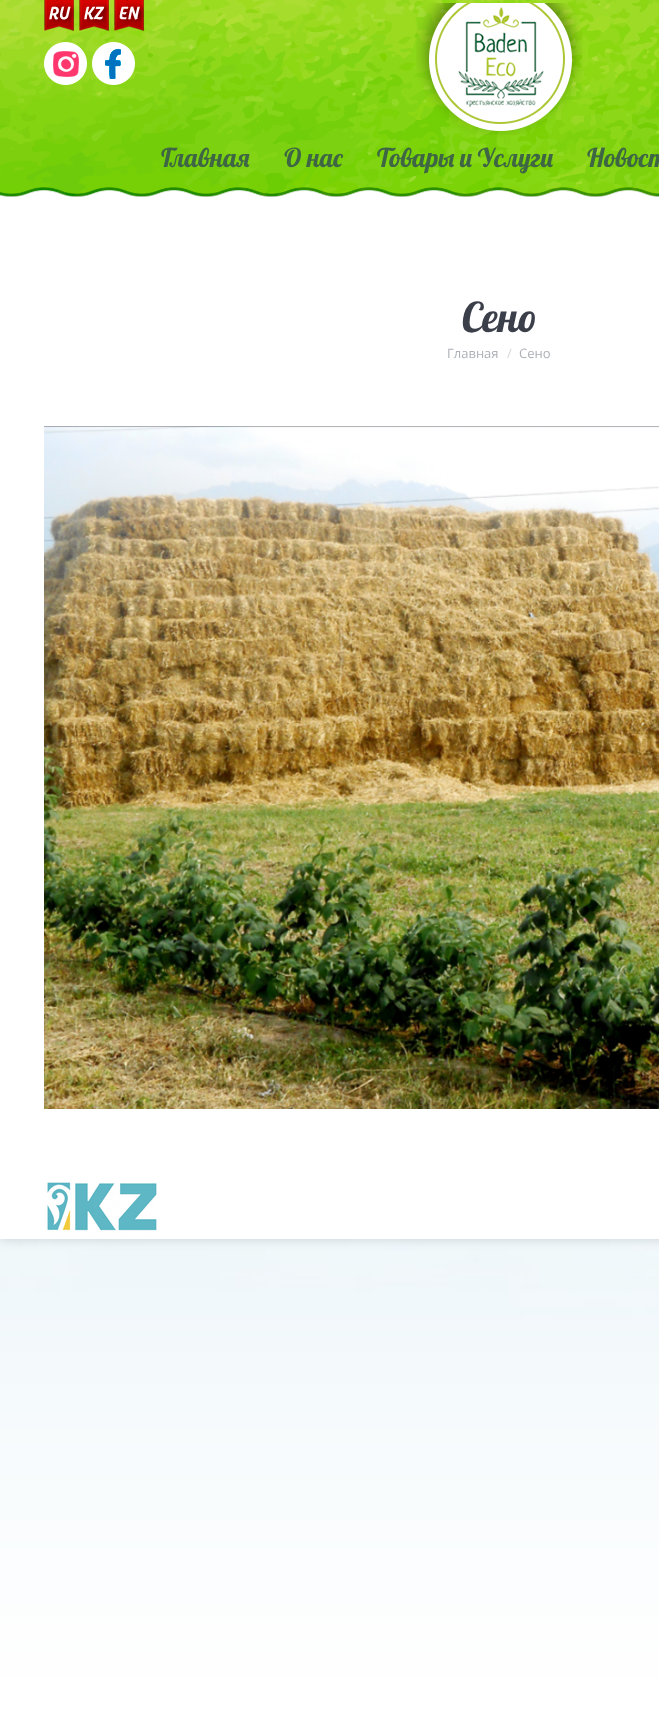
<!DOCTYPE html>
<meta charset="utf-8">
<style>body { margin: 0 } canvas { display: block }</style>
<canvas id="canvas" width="659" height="1717"></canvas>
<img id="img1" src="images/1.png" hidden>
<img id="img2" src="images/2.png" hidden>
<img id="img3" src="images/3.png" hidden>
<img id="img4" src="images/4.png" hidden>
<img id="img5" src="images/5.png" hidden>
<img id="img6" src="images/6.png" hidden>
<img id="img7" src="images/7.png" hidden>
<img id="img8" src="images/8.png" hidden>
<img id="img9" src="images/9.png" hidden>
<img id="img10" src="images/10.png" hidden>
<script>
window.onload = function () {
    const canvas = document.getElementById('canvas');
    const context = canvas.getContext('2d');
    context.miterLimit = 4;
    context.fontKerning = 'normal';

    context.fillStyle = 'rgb(255, 255, 255)';
    context.fillRect(0, 0, 659, 1717);
    context.drawImage(document.getElementById('img1'), 0, 1239, 659, 478);
    context.fillStyle = 'rgba(0, 0, 0, 0.15)';
    context.filter = 'blur(6px)';
    context.beginPath();
    context.rect(0, 0, 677, 1239);
    context.fill();
    context.filter = 'none';
    context.fillStyle = 'rgb(255, 255, 255)';
    context.fillRect(0, 190, 659, 1049);
    context.drawImage(document.getElementById('img2'), 0, 0, 659, 197);
    context.drawImage(document.getElementById('img3'), 44, 0, 30, 31);
    context.drawImage(document.getElementById('img4'), 79, 0, 30, 31);
    context.drawImage(document.getElementById('img5'), 114, 0, 30, 31);
    context.drawImage(document.getElementById('img6'), 44, 42, 43, 43);
    context.drawImage(document.getElementById('img7'), 92, 42, 43, 43);
    context.drawImage(document.getElementById('img8'), 416, 3, 167, 132);
    context.drawImage(document.getElementById('img9'), 44, 426, 615, 683);
    context.drawImage(document.getElementById('img10'), 47, 1182, 110, 52);
    context.font = '26px Lobster';
    context.fillStyle = 'rgb(62, 101, 68)';
    context.fillText('Главная', 161, 167);
    context.fillText('О нас', 284, 167);
    context.fillText('Товары и Услуги', 377, 167);
    context.fillText('Новост', 587, 167);
    context.font = '41px Lobster';
    context.fillStyle = 'rgb(59, 63, 74)';
    context.fillText('Сено', 462, 332);
    context.font = '13px Open Sans';
    context.fillStyle = 'rgb(173, 176, 182)';
    context.fillText('Главная', 447, 358);
    context.fillStyle = 'rgb(214, 216, 219)';
    context.fillText('/', 507, 358);
    context.fillStyle = 'rgb(173, 176, 182)';
    context.fillText('Сено', 519, 358);
};
</script>
